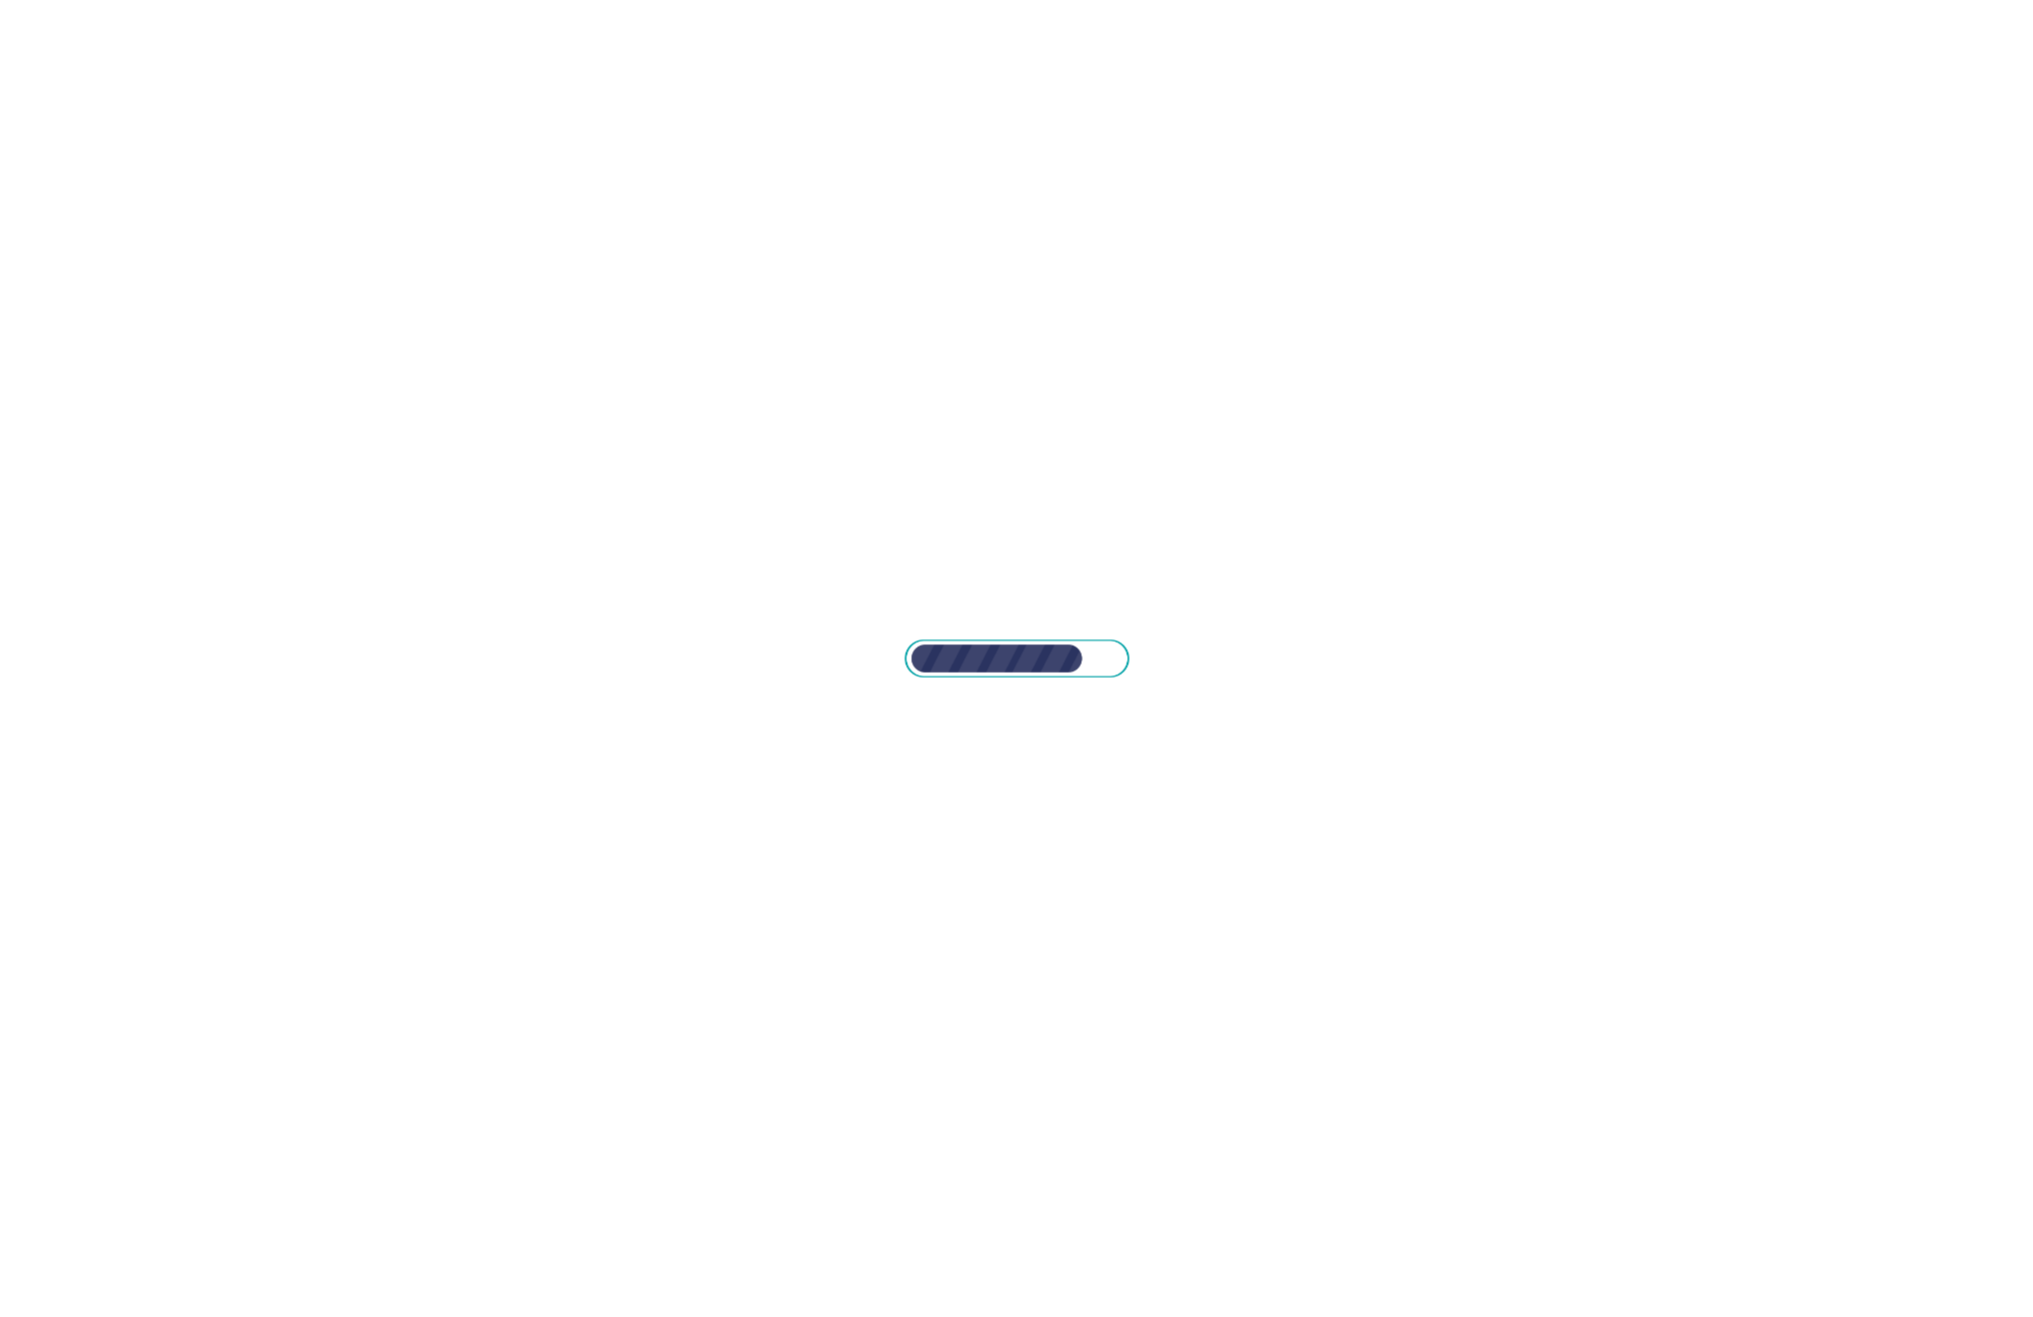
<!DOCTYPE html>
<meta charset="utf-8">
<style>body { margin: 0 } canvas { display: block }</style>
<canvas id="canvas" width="2033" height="1317"></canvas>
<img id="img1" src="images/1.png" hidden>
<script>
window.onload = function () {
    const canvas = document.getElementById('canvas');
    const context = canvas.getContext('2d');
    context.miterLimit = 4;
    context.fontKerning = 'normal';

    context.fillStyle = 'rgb(255, 255, 255)';
    context.fillRect(0, 0, 2033, 1317);
    context.drawImage(document.getElementById('img1'), 904, 639, 226, 39);
};
</script>
